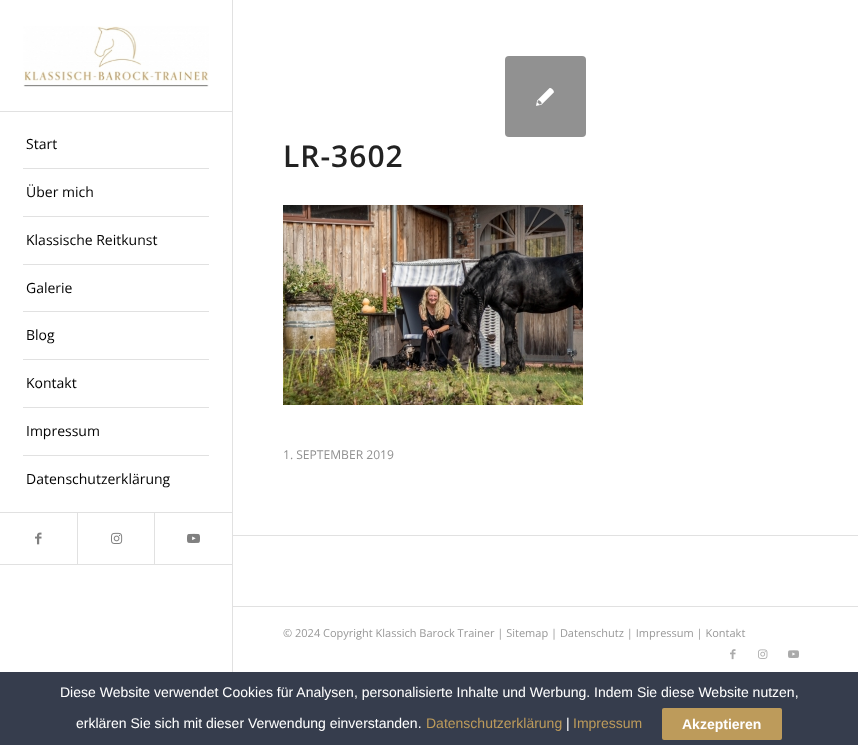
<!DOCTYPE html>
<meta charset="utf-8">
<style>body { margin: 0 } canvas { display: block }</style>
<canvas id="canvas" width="858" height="745"></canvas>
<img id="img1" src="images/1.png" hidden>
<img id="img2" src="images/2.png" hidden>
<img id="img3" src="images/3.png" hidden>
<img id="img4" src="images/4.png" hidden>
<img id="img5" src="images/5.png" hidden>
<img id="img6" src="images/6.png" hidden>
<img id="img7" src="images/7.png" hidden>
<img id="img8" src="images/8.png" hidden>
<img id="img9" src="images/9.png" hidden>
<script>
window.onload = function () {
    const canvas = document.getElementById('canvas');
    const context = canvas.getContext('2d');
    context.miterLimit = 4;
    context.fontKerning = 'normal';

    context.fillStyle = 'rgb(255, 255, 255)';
    context.fillRect(0, 0, 858, 745);
    context.fillStyle = 'rgb(225, 225, 225)';
    context.fillRect(0, 564, 232, 1);
    context.fillRect(0, 111, 232, 1);
    context.drawImage(document.getElementById('img1'), 23, 26, 186, 61);
    context.fillRect(23, 168, 186, 1);
    context.fillRect(23, 216, 186, 1);
    context.fillRect(23, 264, 186, 1);
    context.fillRect(23, 311, 186, 1);
    context.fillRect(23, 359, 186, 1);
    context.fillRect(23, 407, 186, 1);
    context.fillRect(23, 455, 186, 1);
    context.fillRect(0, 512, 232, 1);
    context.drawImage(document.getElementById('img2'), 35, 532, 7, 13);
    context.fillRect(77, 513, 1, 51);
    context.drawImage(document.getElementById('img3'), 111, 532, 12, 12);
    context.fillRect(154, 513, 1, 51);
    context.drawImage(document.getElementById('img4'), 187, 533, 13, 10);
    context.fillRect(232, 0, 1, 679);
    context.fillStyle = 'rgb(145, 145, 145)';
    context.beginPath();
    context.roundRect(505, 56, 81, 81, 4);
    context.fill();
    context.drawImage(document.getElementById('img5'), 536, 88, 18, 18);
    context.drawImage(document.getElementById('img6'), 283, 205, 300, 200);
    context.fillStyle = 'rgb(225, 225, 225)';
    context.fillRect(232, 535, 626, 1);
    context.fillRect(233, 606, 625, 1);
    context.drawImage(document.getElementById('img7'), 730, 649, 6, 11);
    context.drawImage(document.getElementById('img8'), 758, 649, 10, 10);
    context.drawImage(document.getElementById('img9'), 788, 650, 11, 8);
    context.fillStyle = 'rgb(54, 61, 77)';
    context.fillRect(0, 672, 858, 73);
    context.fillStyle = 'rgb(189, 155, 91)';
    context.beginPath();
    context.roundRect(662, 708, 120, 32, 2);
    context.fill();
    context.font = '14px Open Sans';
    context.fillStyle = 'rgb(0, 0, 0)';
    context.fillText('Start', 26, 149);
    context.fillText('Über mich', 26, 197);
    context.fillText('Klassische Reitkunst', 26, 245);
    context.fillText('Galerie', 26, 293);
    context.fillText('Blog', 26, 340);
    context.fillText('Kontakt', 26, 388);
    context.fillText('Impressum', 26, 436);
    context.fillText('Datenschutzerklärung', 26, 484);
    context.letterSpacing = '1px';
    context.font = '600 30px Open Sans';
    context.fillStyle = 'rgb(34, 34, 34)';
    context.fillText('LR-3602', 283, 167);
    context.letterSpacing = '0px';
    context.font = '12.1px Open Sans';
    context.fillStyle = 'rgb(145, 145, 145)';
    context.fillText('1. SEPTEMBER 2019', 283, 459);
    context.font = '11px Open Sans';
    context.fillStyle = 'rgb(153, 153, 153)';
    context.fillText('© 2024 Copyright Klassich Barock Trainer | Sitemap | Datenschutz | Impressum | Kontakt', 283, 637);
    context.font = '14px Liberation Sans';
    context.fillStyle = 'rgb(255, 255, 255)';
    context.fillText('Diese Website verwendet Cookies für Analysen, personalisierte Inhalte und Werbung. Indem Sie diese Website nutzen,', 60, 697);
    context.fillText('erklären Sie sich mit dieser Verwendung einverstanden.', 76, 728);
    context.fillStyle = 'rgb(189, 155, 91)';
    context.fillText('Datenschutzerklärung', 426, 728);
    context.fillStyle = 'rgb(255, 255, 255)';
    context.fillText('|', 566, 728);
    context.fillStyle = 'rgb(189, 155, 91)';
    context.fillText('Impressum', 573, 728);
    context.font = 'bold 14px Liberation Sans';
    context.fillStyle = 'rgb(255, 255, 255)';
    context.fillText('Akzeptieren', 682, 729);
};
</script>
